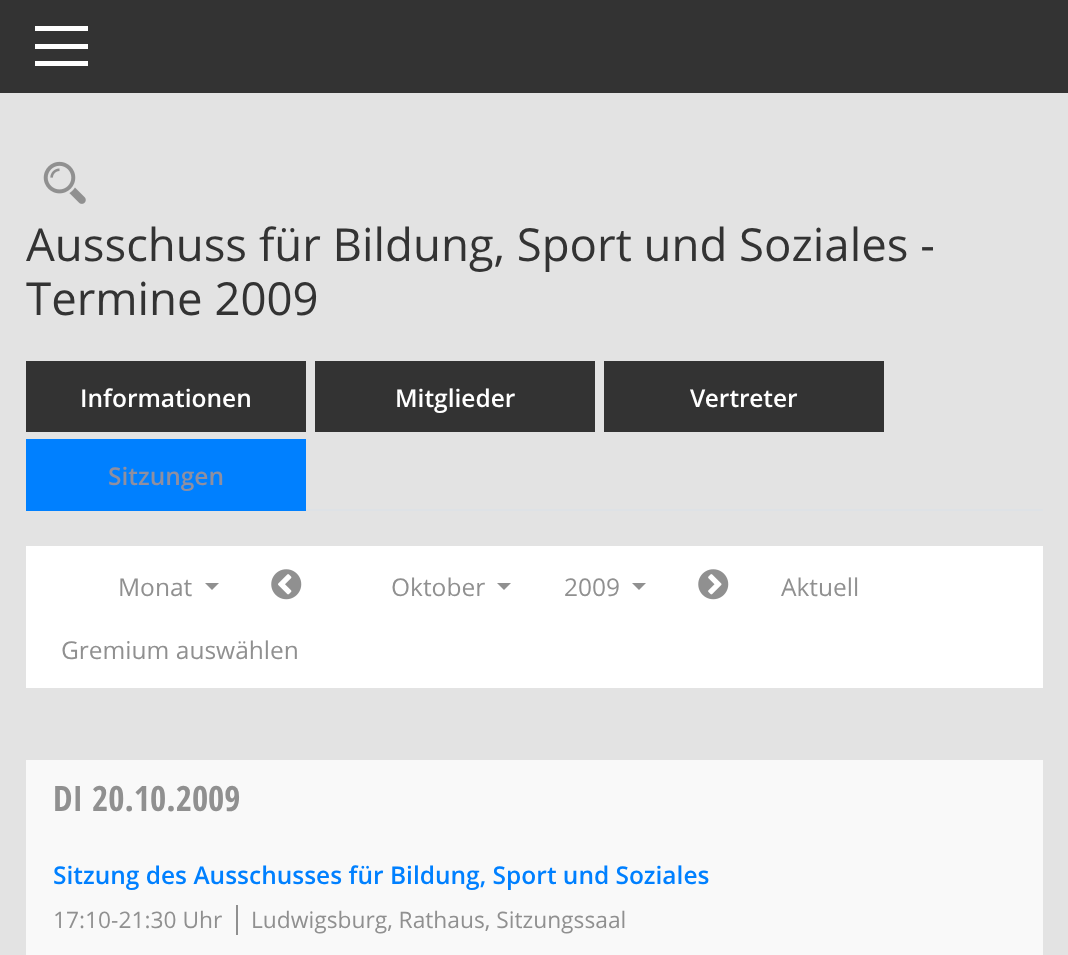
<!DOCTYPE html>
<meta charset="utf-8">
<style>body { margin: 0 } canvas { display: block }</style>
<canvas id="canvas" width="1068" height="955"></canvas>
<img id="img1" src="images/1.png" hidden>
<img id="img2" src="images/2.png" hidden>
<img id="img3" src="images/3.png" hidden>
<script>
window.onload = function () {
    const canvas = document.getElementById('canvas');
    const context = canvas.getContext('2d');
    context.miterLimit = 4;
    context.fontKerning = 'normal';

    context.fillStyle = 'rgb(227, 227, 227)';
    context.fillRect(0, 0, 1068, 955);
    context.fillStyle = 'rgb(51, 51, 51)';
    context.fillRect(0, 0, 1068, 93);
    context.fillStyle = 'rgb(255, 255, 255)';
    context.fillRect(35, 26, 53, 5);
    context.fillRect(35, 44, 53, 5);
    context.fillRect(35, 61, 53, 5);
    context.drawImage(document.getElementById('img1'), 43, 161, 43, 43);
    context.fillStyle = 'rgb(222, 226, 230)';
    context.fillRect(306, 509, 737, 2);
    context.fillStyle = 'rgb(51, 51, 51)';
    context.fillRect(26, 361, 280, 71);
    context.fillRect(315, 361, 280, 71);
    context.fillRect(604, 361, 280, 71);
    context.fillStyle = 'rgb(0, 128, 255)';
    context.fillRect(26, 439, 280, 72);
    context.fillStyle = 'rgb(255, 255, 255)';
    context.fillRect(26, 546, 1017, 142);
    context.fillStyle = 'rgb(144, 144, 144)';
    context.beginPath();
    context.moveTo(205, 583);
    context.lineTo(219, 583);
    context.lineTo(212, 590);
    context.closePath();
    context.fill();
    context.drawImage(document.getElementById('img2'), 271, 569, 31, 31);
    context.beginPath();
    context.moveTo(497, 583);
    context.lineTo(511, 583);
    context.lineTo(504, 590);
    context.closePath();
    context.fill();
    context.beginPath();
    context.moveTo(632, 583);
    context.lineTo(646, 583);
    context.lineTo(639, 590);
    context.closePath();
    context.fill();
    context.drawImage(document.getElementById('img3'), 698, 569, 31, 31);
    context.fillStyle = 'rgb(249, 249, 249)';
    context.fillRect(26, 760, 1017, 195);
    context.fillStyle = 'rgb(144, 144, 144)';
    context.fillRect(236, 905, 2, 30);
    context.font = '45.5px Open Sans';
    context.fillStyle = 'rgb(51, 51, 51)';
    context.fillText('Ausschuss für Bildung, Sport und Soziales -', 26, 261);
    context.fillText('Termine 2009', 26, 315);
    context.font = '600 24.5px Open Sans';
    context.fillStyle = 'rgb(255, 255, 255)';
    context.fillText('Informationen', 80, 407);
    context.fillText('Mitglieder', 395, 407);
    context.fillText('Vertreter', 690, 407);
    context.fillStyle = 'rgb(143, 143, 160)';
    context.fillText('Sitzungen', 108, 485);
    context.font = '24.5px Open Sans';
    context.fillStyle = 'rgb(144, 144, 144)';
    context.fillText('Monat', 118, 596);
    context.fillText('Oktober', 391, 596);
    context.fillText('2009', 564, 596);
    context.fillText('Aktuell', 781, 596);
    context.fillText('Gremium auswählen', 61, 659);
    context.font = 'bold 35px Open Sans Condensed';
    context.fillText('DI', 53, 811);
    context.fillText('20.10.2009', 92, 811);
    context.font = '600 24.5px Open Sans';
    context.fillStyle = 'rgb(0, 128, 255)';
    context.fillText('Sitzung des Ausschusses für Bildung, Sport und Soziales', 53, 884);
    context.font = '22.75px Open Sans';
    context.fillStyle = 'rgb(144, 144, 144)';
    context.fillText('17:10-21:30 Uhr', 53, 928);
    context.fillText('Ludwigsburg, Rathaus, Sitzungssaal', 251, 928);
};
</script>
